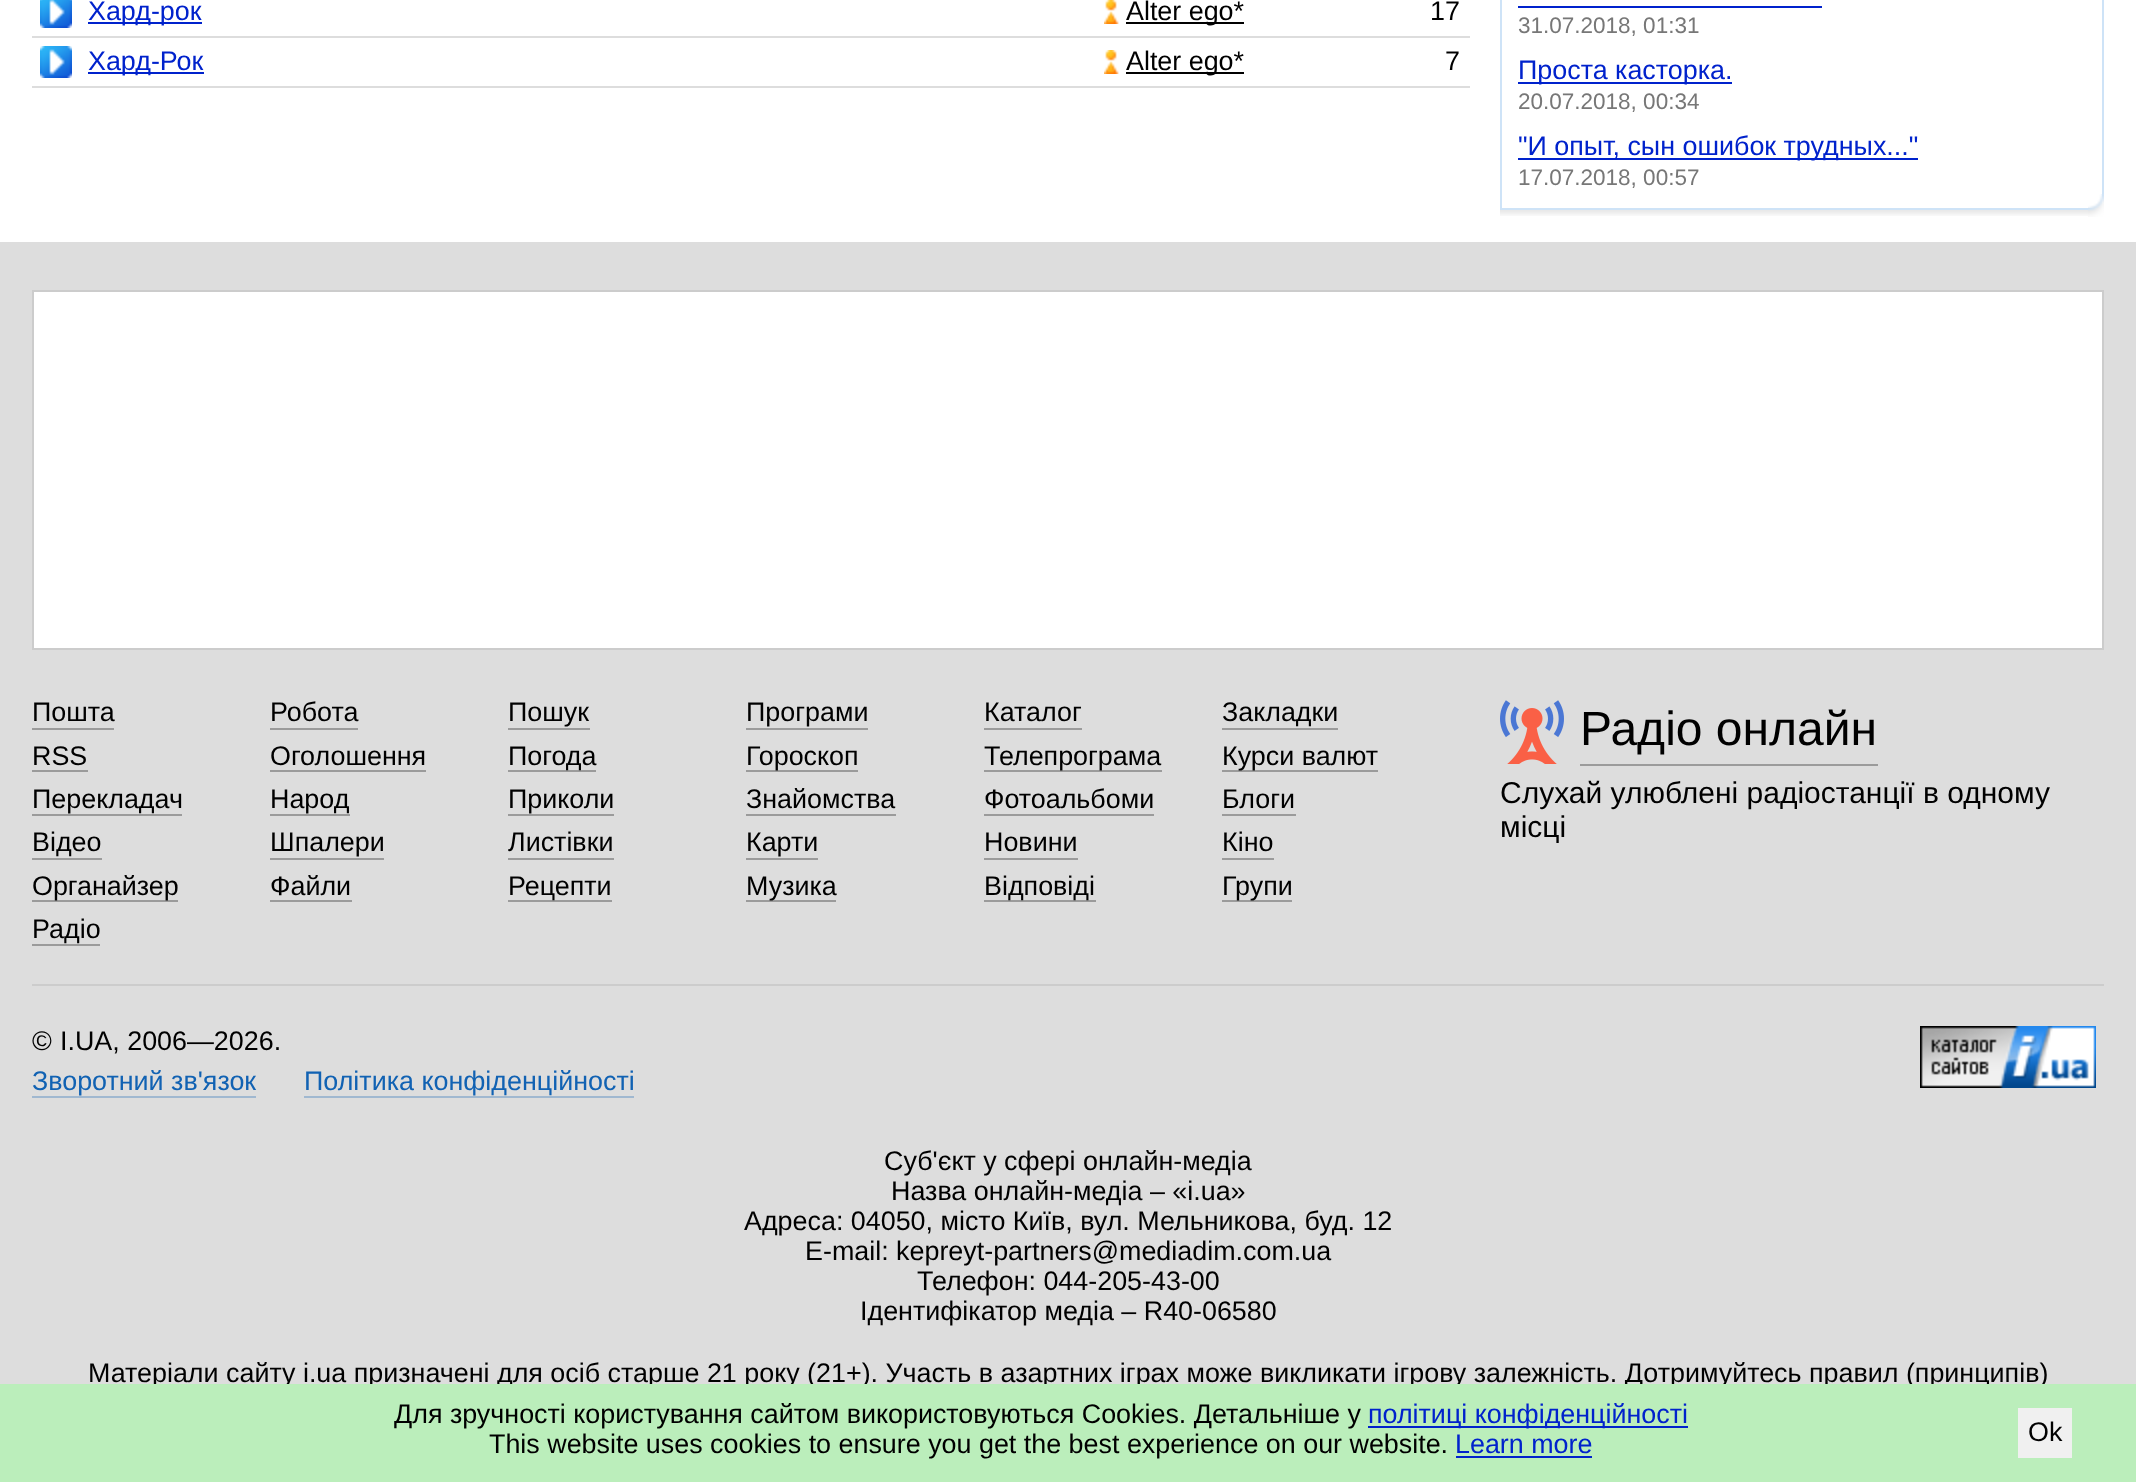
<!DOCTYPE html>
<meta charset="utf-8">
<style>body { margin: 0 } canvas { display: block }</style>
<canvas id="canvas" width="2136" height="1482"></canvas>
<img id="img1" src="images/1.png" hidden>
<img id="img2" src="images/2.png" hidden>
<img id="img3" src="images/3.png" hidden>
<img id="img4" src="images/4.png" hidden>
<img id="img5" src="images/5.png" hidden>
<img id="img6" src="images/6.png" hidden>
<img id="img7" src="images/7.png" hidden>
<script>
window.onload = function () {
    const canvas = document.getElementById('canvas');
    const context = canvas.getContext('2d');
    context.miterLimit = 4;
    context.fontKerning = 'normal';

    context.fillStyle = 'rgb(255, 255, 255)';
    context.fillRect(0, 0, 2136, 1482);
    context.fillStyle = 'rgb(221, 221, 221)';
    context.fillRect(32, 86, 1438, 2);
    context.drawImage(document.getElementById('img1'), 40, 0, 32, 28);
    context.fillStyle = 'rgb(0, 34, 204)';
    context.fillRect(88, 22, 114, 2);
    context.drawImage(document.getElementById('img2'), 1104, 0, 15, 24);
    context.fillStyle = 'rgb(0, 0, 0)';
    context.fillRect(1126, 22, 118, 2);
    context.fillStyle = 'rgb(221, 221, 221)';
    context.fillRect(32, 36, 1438, 2);
    context.drawImage(document.getElementById('img3'), 40, 46, 32, 32);
    context.fillStyle = 'rgb(0, 34, 204)';
    context.fillRect(88, 72, 116, 2);
    context.drawImage(document.getElementById('img2'), 1104, 50, 15, 24);
    context.fillStyle = 'rgb(0, 0, 0)';
    context.fillRect(1126, 72, 118, 2);
    context.drawImage(document.getElementById('img4'), 1500, 210, 588, 6);
    context.strokeStyle = 'rgb(206, 227, 247)';
    context.lineWidth = 2;
    context.strokeRect(1501, -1, 602, 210);
    context.fillStyle = 'rgb(0, 34, 204)';
    context.fillRect(1518, 6, 304, 2);
    context.fillRect(1518, 82, 214, 2);
    context.fillRect(1518, 158, 400, 2);
    context.drawImage(document.getElementById('img5'), 2088, 194, 16, 23);
    context.fillStyle = 'rgb(221, 221, 221)';
    context.fillRect(0, 242, 2136, 1142);
    context.fillStyle = 'rgb(255, 255, 255)';
    context.beginPath();
    context.rect(33, 291, 2070, 358);
    context.fill();
    context.strokeStyle = 'rgb(204, 204, 204)';
    context.stroke();
    context.fillStyle = 'rgb(155, 155, 155)';
    context.fillRect(32, 728, 82, 2);
    context.fillRect(270, 728, 88, 2);
    context.fillRect(508, 728, 82, 2);
    context.fillRect(746, 728, 122, 2);
    context.fillRect(984, 728, 98, 2);
    context.fillRect(1222, 728, 116, 2);
    context.fillRect(32, 770, 56, 2);
    context.fillRect(270, 770, 156, 2);
    context.fillRect(508, 770, 88, 2);
    context.fillRect(746, 770, 112, 2);
    context.fillRect(984, 770, 178, 2);
    context.fillRect(1222, 770, 156, 2);
    context.fillRect(32, 814, 150, 2);
    context.fillRect(270, 814, 80, 2);
    context.fillRect(508, 814, 106, 2);
    context.fillRect(746, 814, 150, 2);
    context.fillRect(984, 814, 170, 2);
    context.fillRect(1222, 814, 74, 2);
    context.fillRect(32, 858, 70, 2);
    context.fillRect(270, 858, 114, 2);
    context.fillRect(508, 858, 106, 2);
    context.fillRect(746, 858, 72, 2);
    context.fillRect(984, 858, 94, 2);
    context.fillRect(1222, 858, 52, 2);
    context.fillRect(32, 900, 146, 2);
    context.fillRect(270, 900, 82, 2);
    context.fillRect(508, 900, 104, 2);
    context.fillRect(746, 900, 90, 2);
    context.fillRect(984, 900, 112, 2);
    context.fillRect(1222, 900, 70, 2);
    context.fillRect(32, 944, 68, 2);
    context.fillRect(1580, 764, 298, 2);
    context.drawImage(document.getElementById('img6'), 1500, 700, 64, 64);
    context.fillStyle = 'rgb(204, 204, 204)';
    context.fillRect(32, 984, 2072, 2);
    context.drawImage(document.getElementById('img7'), 1920, 1026, 176, 62);
    context.fillStyle = 'rgb(160, 184, 208)';
    context.fillRect(32, 1096, 224, 2);
    context.fillRect(304, 1096, 330, 2);
    context.font = '26.88px Liberation Sans';
    context.fillStyle = 'rgb(0, 34, 204)';
    context.fillText('Хард-рок', 88, 20);
    context.fillStyle = 'rgb(0, 0, 0)';
    context.fillText('Alter ego*', 1126, 20);
    context.fillText('17', 1430, 20);
    context.fillStyle = 'rgb(0, 34, 204)';
    context.fillText('Хард-Рок', 88, 70);
    context.fillStyle = 'rgb(0, 0, 0)';
    context.fillText('Alter ego*', 1126, 70);
    context.fillText('7', 1445, 70);
    context.font = '22.5px Liberation Sans';
    context.fillStyle = 'rgb(119, 119, 119)';
    context.fillText('31.07.2018, 01:31', 1518, 33);
    context.font = '26.88px Liberation Sans';
    context.fillStyle = 'rgb(0, 34, 204)';
    context.fillText('Проста касторка.', 1518, 79);
    context.font = '22.5px Liberation Sans';
    context.fillStyle = 'rgb(119, 119, 119)';
    context.fillText('20.07.2018, 00:34', 1518, 109);
    context.font = '26.88px Liberation Sans';
    context.fillStyle = 'rgb(0, 34, 204)';
    context.fillText('"И опыт, сын ошибок трудных..."', 1518, 155);
    context.font = '22.5px Liberation Sans';
    context.fillStyle = 'rgb(119, 119, 119)';
    context.fillText('17.07.2018, 00:57', 1518, 185);
    context.font = '26.88px Liberation Sans';
    context.fillStyle = 'rgb(0, 0, 0)';
    context.fillText('Пошта', 32, 721);
    context.fillText('Робота', 270, 721);
    context.fillText('Пошук', 508, 721);
    context.fillText('Програми', 746, 721);
    context.fillText('Каталог', 984, 721);
    context.fillText('Закладки', 1222, 721);
    context.fillText('RSS', 32, 765);
    context.fillText('Оголошення', 270, 765);
    context.fillText('Погода', 508, 765);
    context.fillText('Гороскоп', 746, 765);
    context.fillText('Телепрограма', 984, 765);
    context.fillText('Курси валют', 1222, 765);
    context.fillText('Перекладач', 32, 808);
    context.fillText('Народ', 270, 808);
    context.fillText('Приколи', 508, 808);
    context.fillText('Знайомства', 746, 808);
    context.fillText('Фотоальбоми', 984, 808);
    context.fillText('Блоги', 1222, 808);
    context.fillText('Відео', 32, 851);
    context.fillText('Шпалери', 270, 851);
    context.fillText('Листівки', 508, 851);
    context.fillText('Карти', 746, 851);
    context.fillText('Новини', 984, 851);
    context.fillText('Кіно', 1222, 851);
    context.fillText('Органайзер', 32, 895);
    context.fillText('Файли', 270, 895);
    context.fillText('Рецепти', 508, 895);
    context.fillText('Музика', 746, 895);
    context.fillText('Відповіді', 984, 895);
    context.fillText('Групи', 1222, 895);
    context.fillText('Радіо', 32, 938);
    context.font = '48px Liberation Sans';
    context.fillText('Радіо онлайн', 1580, 745);
    context.font = '30px Liberation Sans';
    context.fillText('Слухай улюблені радіостанції в одному', 1500, 803);
    context.fillText('місці', 1500, 837);
    context.font = '26.88px Liberation Sans';
    context.fillText('©', 32, 1050);
    context.fillText('I.UA, 2006—2026.', 60, 1050);
    context.fillStyle = 'rgb(17, 98, 179)';
    context.fillText('Зворотний зв\'язок', 32, 1090);
    context.fillText('Політика конфіденційності', 304, 1090);
    context.fillStyle = 'rgb(0, 0, 0)';
    context.fillText('Суб\'єкт у сфері онлайн-медіа', 884, 1170);
    context.fillText('Назва онлайн-медіа – «i.ua»', 891, 1200);
    context.fillText('Адреса: 04050, місто Київ, вул. Мельникова, буд. 12', 744, 1230);
    context.fillText('E-mail: kepreyt-partners@mediadim.com.ua', 805, 1260);
    context.fillText('Телефон: 044-205-43-00', 917, 1290);
    context.fillText('Ідентифікатор медіа – R40-06580', 860, 1320);
    context.fillText('Матеріали сайту i.ua призначені для осіб старше 21 року (21+). Участь в азартних іграх може викликати ігрову залежність. Дотримуйтесь правил (принципів)', 88, 1382);
    context.fillStyle = 'rgb(187, 238, 187)';
    context.fillRect(0, 1384, 2136, 98);
    context.fillStyle = 'rgb(0, 0, 0)';
    context.fillText('Для зручності користування сайтом використовуються Cookies. Детальніше у', 394, 1423);
    context.fillStyle = 'rgb(0, 34, 204)';
    context.fillRect(1368, 1426, 320, 2);
    context.fillText('політиці конфіденційності', 1368, 1423);
    context.fillStyle = 'rgb(0, 0, 0)';
    context.fillText('This website uses cookies to ensure you get the best experience on our website.', 489, 1453);
    context.fillStyle = 'rgb(0, 34, 204)';
    context.fillText('Learn more', 1455, 1453);
    context.fillRect(1456, 1456, 136, 2);
    context.fillStyle = 'rgb(240, 240, 240)';
    context.fillRect(2018, 1408, 54, 50);
    context.fillStyle = 'rgb(0, 0, 0)';
    context.fillText('Ok', 2028, 1441);
};
</script>
